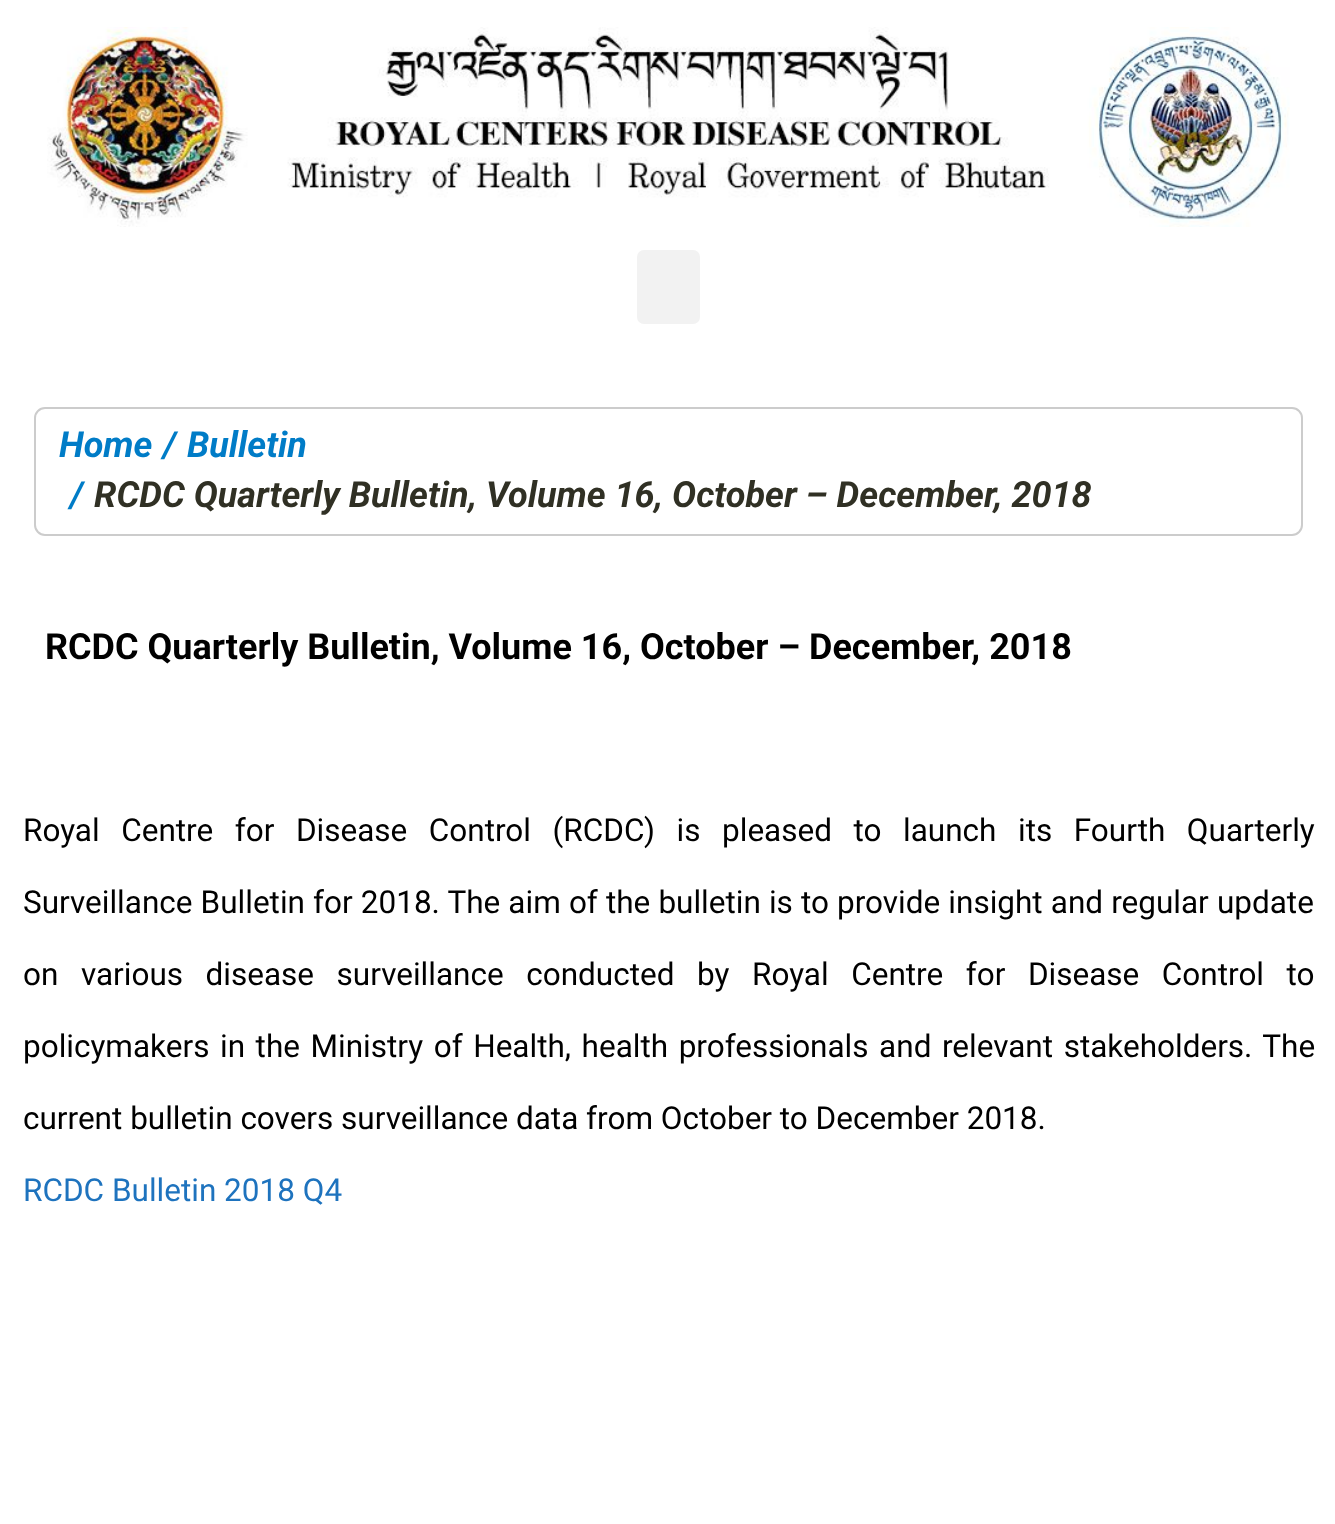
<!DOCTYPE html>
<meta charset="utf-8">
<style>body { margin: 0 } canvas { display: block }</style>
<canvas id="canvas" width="1335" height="1524"></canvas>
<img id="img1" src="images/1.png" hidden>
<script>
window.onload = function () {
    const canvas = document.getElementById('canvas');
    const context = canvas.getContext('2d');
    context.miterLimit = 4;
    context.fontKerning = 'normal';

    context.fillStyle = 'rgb(255, 255, 255)';
    context.fillRect(0, 0, 1335, 1524);
    context.drawImage(document.getElementById('img1'), 47, 27, 1243, 200);
    context.fillStyle = 'rgb(242, 242, 242)';
    context.beginPath();
    context.roundRect(637, 250, 63, 74, 7);
    context.fill();
    context.beginPath();
    context.roundRect(35, 408, 1267, 127, 10);
    context.strokeStyle = 'rgb(204, 204, 204)';
    context.lineWidth = 2;
    context.stroke();
    context.font = 'italic bold 36px Roboto';
    context.fillStyle = 'rgb(0, 124, 199)';
    context.fillText('Home', 59, 457);
    context.fillText('/', 163, 457);
    context.fillText('Bulletin', 187, 457);
    context.fillText('/', 70, 507);
    context.fillStyle = 'rgb(48, 48, 36)';
    context.fillText('RCDC Quarterly Bulletin, Volume 16, October – December, 2018', 94, 507);
    context.font = 'bold 36px Roboto';
    context.fillStyle = 'rgb(0, 0, 0)';
    context.fillText('RCDC Quarterly Bulletin, Volume 16, October – December, 2018', 45, 659);
    context.wordSpacing = '13.75px';
    context.font = '31.5px Roboto';
    context.fillText('Royal Centre for Disease Control (RCDC) is pleased to launch its Fourth Quarterly', 23, 841);
    context.wordSpacing = '0.3px';
    context.fillText('Surveillance Bulletin for 2018. The aim of the bulletin is to provide insight and regular update', 23, 913);
    context.wordSpacing = '14.75px';
    context.fillText('on various disease surveillance conducted by Royal Centre for Disease Control to', 23, 985);
    context.wordSpacing = '2.75px';
    context.fillText('policymakers in the Ministry of Health, health professionals and relevant stakeholders. The', 23, 1057);
    context.wordSpacing = '0px';
    context.fillText('current bulletin covers surveillance data from October to December 2018.', 23, 1129);
    context.fillStyle = 'rgb(30, 115, 190)';
    context.fillText('RCDC Bulletin 2018 Q4', 23, 1201);
};
</script>
